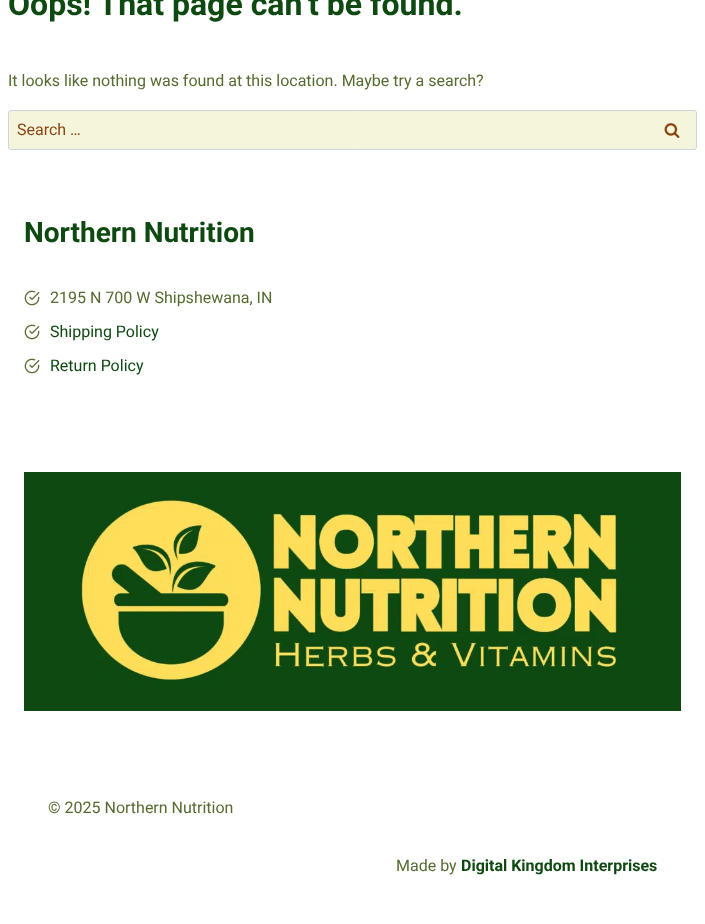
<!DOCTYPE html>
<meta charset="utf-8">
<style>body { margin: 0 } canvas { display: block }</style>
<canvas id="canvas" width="705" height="924"></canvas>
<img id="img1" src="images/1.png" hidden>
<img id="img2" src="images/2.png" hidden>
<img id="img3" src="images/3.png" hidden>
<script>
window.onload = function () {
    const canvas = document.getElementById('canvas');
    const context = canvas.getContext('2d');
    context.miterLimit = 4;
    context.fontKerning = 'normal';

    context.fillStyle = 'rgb(255, 255, 255)';
    context.fillRect(0, 0, 705, 924);
    context.fillStyle = 'rgb(245, 245, 220)';
    context.beginPath();
    context.roundRect(8.5, 110.5, 688, 39, 2.5);
    context.fill();
    context.strokeStyle = 'rgb(203, 213, 224)';
    context.stroke();
    context.drawImage(document.getElementById('img1'), 664, 123, 16, 15);
    context.drawImage(document.getElementById('img2'), 24, 290, 16, 16);
    context.drawImage(document.getElementById('img2'), 24, 324, 16, 16);
    context.drawImage(document.getElementById('img2'), 24, 358, 16, 16);
    context.drawImage(document.getElementById('img3'), 24, 472, 657, 239);
    context.font = 'bold 32px Roboto';
    context.fillStyle = 'rgb(14, 73, 17)';
    context.fillText('Oops! That page can’t be found.', 8, 15);
    context.font = '16px Roboto';
    context.fillStyle = 'rgb(85, 107, 47)';
    context.fillText('It looks like nothing was found at this location. Maybe try a search?', 8, 86);
    context.fillStyle = 'rgb(139, 69, 19)';
    context.fillText('Search …', 17, 135);
    context.font = 'bold 28px Roboto';
    context.fillStyle = 'rgb(14, 73, 17)';
    context.fillText('Northern Nutrition', 24, 242);
    context.font = '16px Roboto';
    context.fillStyle = 'rgb(85, 107, 47)';
    context.fillText('2195 N 700 W Shipshewana, IN', 50, 303);
    context.fillStyle = 'rgb(14, 73, 17)';
    context.fillText('Shipping Policy', 50, 337);
    context.fillText('Return Policy', 50, 371);
    context.fillStyle = 'rgb(85, 107, 47)';
    context.fillText('© 2025 Northern Nutrition', 48, 813);
    context.fillText('Made by', 396, 871);
    context.font = 'bold 16px Roboto';
    context.fillStyle = 'rgb(14, 73, 17)';
    context.fillText('Digital Kingdom Interprises', 461, 871);
};
</script>
